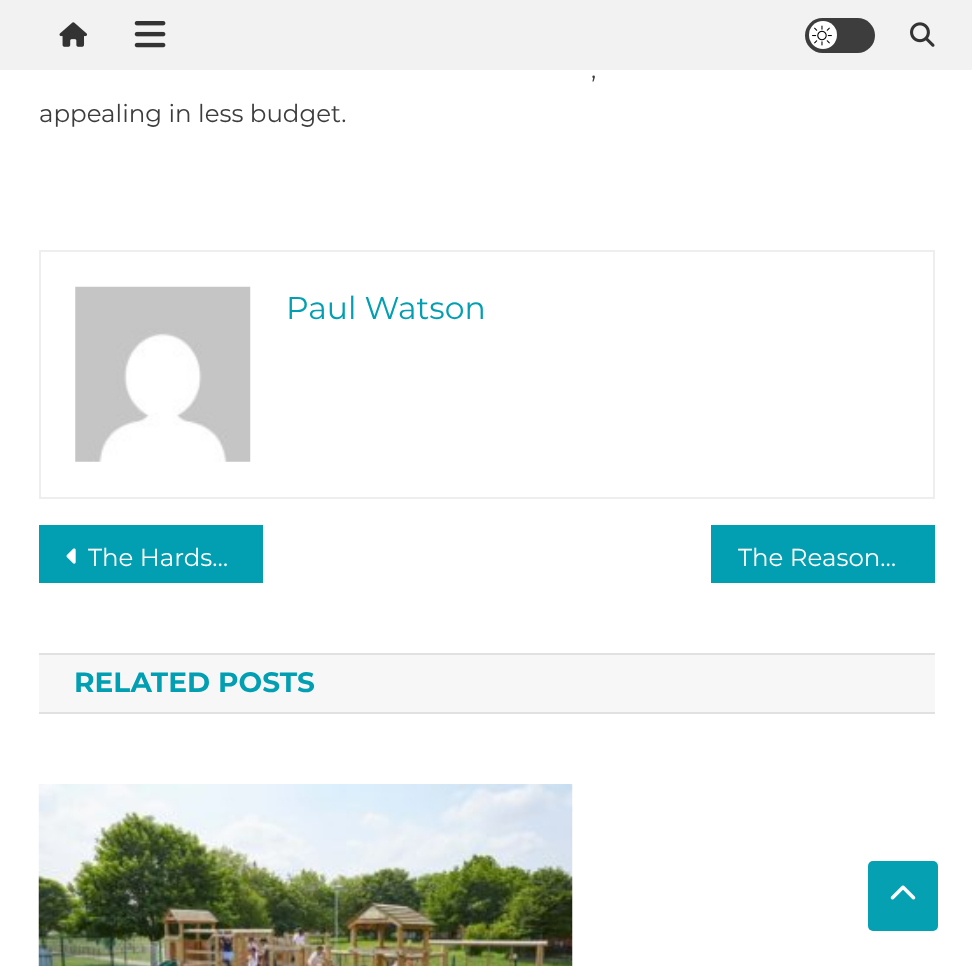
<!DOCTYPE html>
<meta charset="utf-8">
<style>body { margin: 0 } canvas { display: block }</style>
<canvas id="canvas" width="972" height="966"></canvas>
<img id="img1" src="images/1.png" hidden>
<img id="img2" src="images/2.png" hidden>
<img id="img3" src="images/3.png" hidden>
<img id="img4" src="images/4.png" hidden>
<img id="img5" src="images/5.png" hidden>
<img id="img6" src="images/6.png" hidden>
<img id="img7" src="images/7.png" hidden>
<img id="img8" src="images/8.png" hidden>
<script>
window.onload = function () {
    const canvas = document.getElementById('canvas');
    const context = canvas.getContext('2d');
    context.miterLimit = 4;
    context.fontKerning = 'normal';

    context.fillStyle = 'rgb(255, 255, 255)';
    context.fillRect(0, 0, 972, 966);
    context.fillStyle = 'rgb(242, 242, 242)';
    context.fillRect(0, 0, 972, 70);
    context.drawImage(document.getElementById('img1'), 59, 22, 28, 25);
    context.drawImage(document.getElementById('img2'), 134, 21, 32, 27);
    context.fillStyle = 'rgb(61, 61, 61)';
    context.beginPath();
    context.roundRect(805, 18, 70, 35, 17.5);
    context.fill();
    context.fillStyle = 'rgb(255, 255, 255)';
    context.beginPath();
    context.arc(823, 35, 14, 0, 2 * Math.PI);
    context.fill();
    context.drawImage(document.getElementById('img3'), 812, 25, 20, 21);
    context.drawImage(document.getElementById('img4'), 910, 22, 25, 25);
    context.strokeStyle = 'rgb(238, 238, 238)';
    context.lineWidth = 2;
    context.strokeRect(40, 251, 894, 247);
    context.drawImage(document.getElementById('img5'), 75, 286, 176, 176);
    context.fillStyle = 'rgb(2, 159, 178)';
    context.fillRect(39, 525, 224, 58);
    context.drawImage(document.getElementById('img6'), 66, 548, 10, 16);
    context.fillRect(711, 525, 224, 58);
    context.fillStyle = 'rgb(247, 247, 247)';
    context.fillRect(39, 655, 896, 57);
    context.fillStyle = 'rgb(225, 225, 225)';
    context.fillRect(39, 653, 896, 2);
    context.fillRect(39, 712, 896, 2);
    context.drawImage(document.getElementById('img7'), 38, 784, 535, 182);
    context.fillStyle = 'rgb(6, 160, 179)';
    context.beginPath();
    context.roundRect(868, 861, 70, 70, 5);
    context.fill();
    context.drawImage(document.getElementById('img8'), 890, 885, 26, 15);
    context.font = '24.5px Montserrat';
    context.fillStyle = 'rgb(61, 61, 61)';
    context.fillText(',', 591, 78);
    context.fillText('appealing in less budget.', 39, 122);
    context.font = '31.5px Montserrat';
    context.fillStyle = 'rgb(2, 159, 178)';
    context.fillText('Paul Watson', 286, 319);
    context.font = '24.5px Montserrat';
    context.fillStyle = 'rgb(255, 255, 255)';
    context.fillText('The Hards…', 88, 566);
    context.fillText('The Reason…', 738, 566);
    context.font = 'bold 28px Montserrat';
    context.fillStyle = 'rgb(2, 159, 178)';
    context.fillText('RELATED POSTS', 74, 692);
};
</script>
